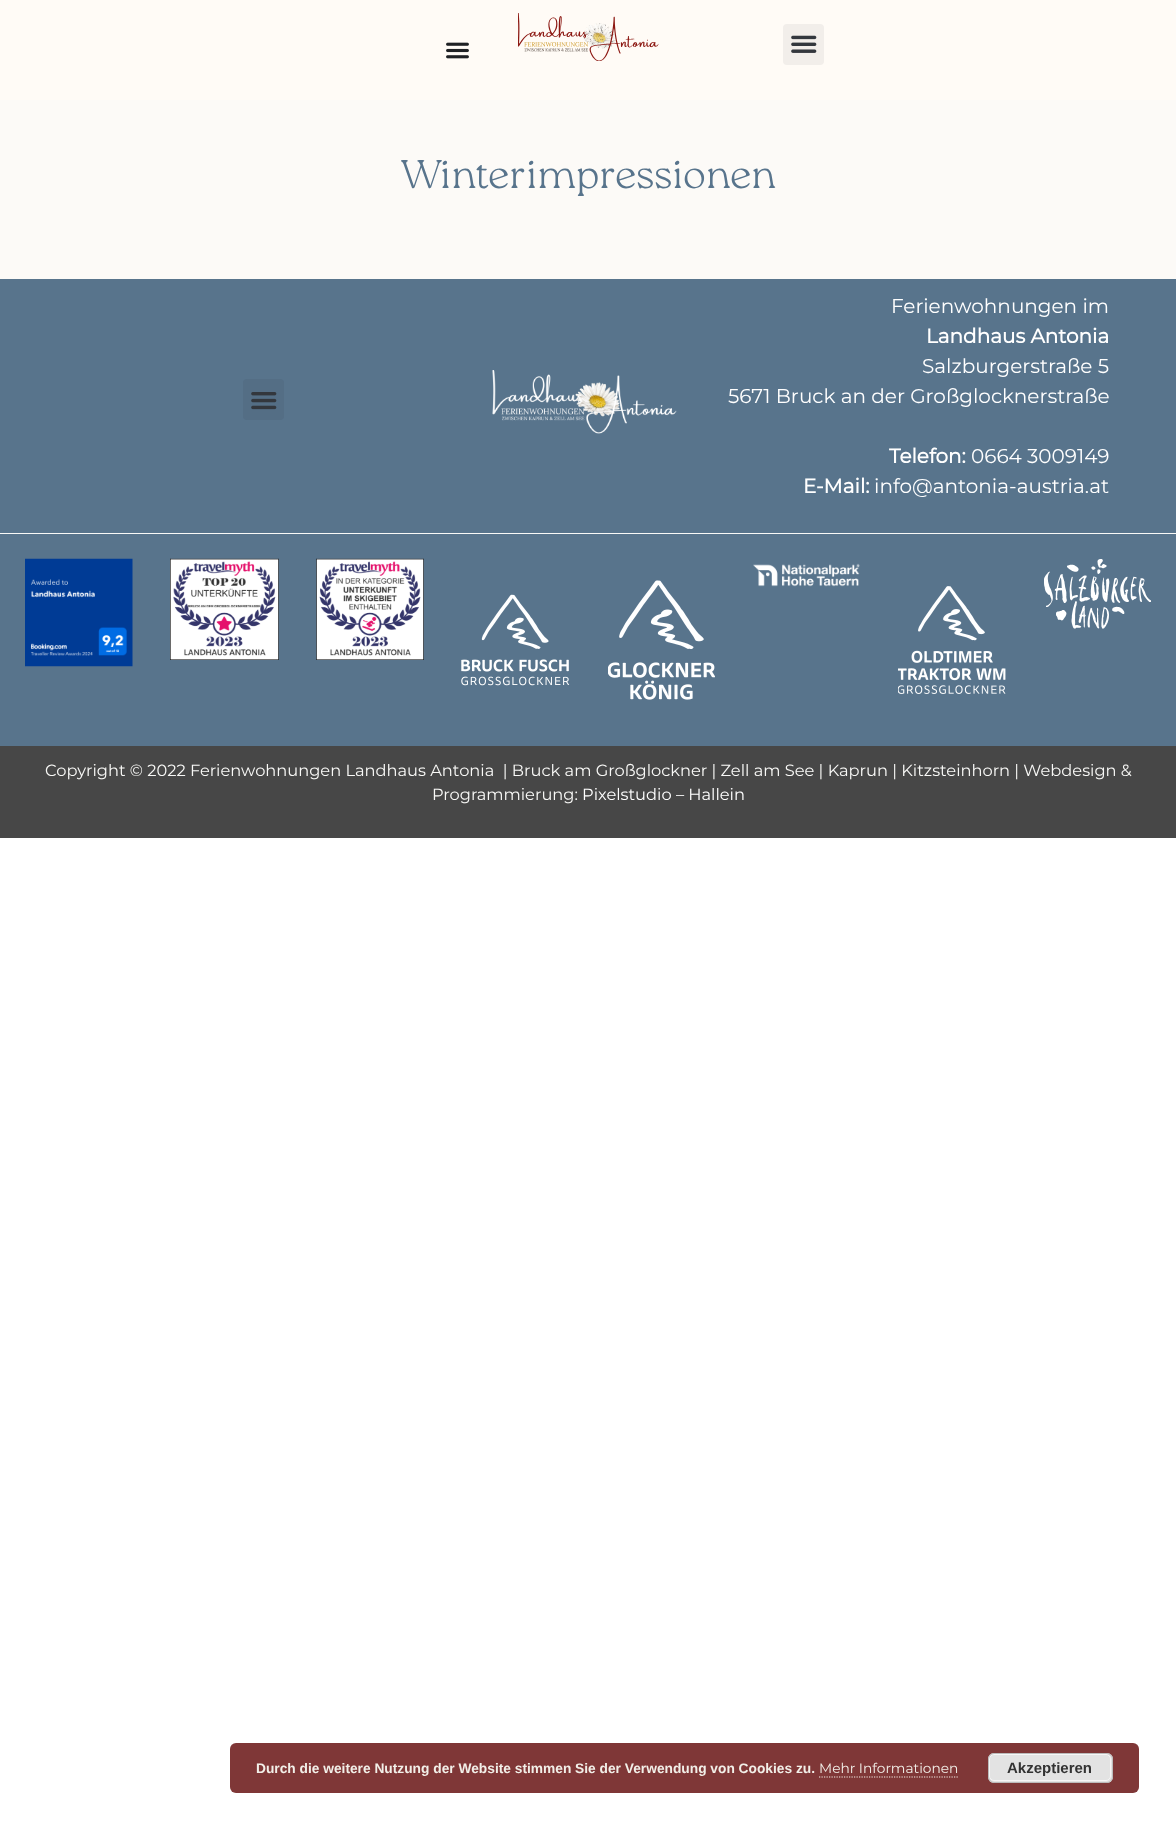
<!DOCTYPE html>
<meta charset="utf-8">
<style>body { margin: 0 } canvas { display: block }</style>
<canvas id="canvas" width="1176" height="1830"></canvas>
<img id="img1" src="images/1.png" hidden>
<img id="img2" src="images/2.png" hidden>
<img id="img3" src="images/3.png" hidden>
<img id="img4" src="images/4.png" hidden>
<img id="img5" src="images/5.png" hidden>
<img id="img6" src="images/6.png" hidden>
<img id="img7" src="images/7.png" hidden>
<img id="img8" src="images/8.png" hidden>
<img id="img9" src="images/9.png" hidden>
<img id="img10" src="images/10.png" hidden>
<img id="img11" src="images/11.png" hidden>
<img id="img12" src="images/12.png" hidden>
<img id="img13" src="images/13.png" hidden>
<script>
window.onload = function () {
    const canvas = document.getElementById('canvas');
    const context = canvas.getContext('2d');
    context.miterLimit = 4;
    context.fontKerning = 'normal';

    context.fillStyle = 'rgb(255, 255, 255)';
    context.fillRect(0, 0, 1176, 1830);
    context.fillStyle = 'rgb(255, 251, 246)';
    context.fillRect(0, 0, 1176, 100);
    context.drawImage(document.getElementById('img1'), 446, 42, 23, 17);
    context.drawImage(document.getElementById('img2'), 518, 13, 141, 48);
    context.fillStyle = 'rgb(242, 238, 234)';
    context.beginPath();
    context.roundRect(783, 24, 41, 41, 4);
    context.fill();
    context.drawImage(document.getElementById('img3'), 791, 35, 26, 18);
    context.fillStyle = 'rgb(252, 250, 247)';
    context.fillRect(0, 100, 1176, 179);
    context.fillStyle = 'rgb(88, 116, 140)';
    context.fillRect(0, 279, 1176, 254);
    context.fillStyle = 'rgb(84, 110, 133)';
    context.beginPath();
    context.roundRect(243, 379, 41, 41, 4);
    context.fill();
    context.drawImage(document.getElementById('img4'), 251, 392, 26, 18);
    context.drawImage(document.getElementById('img5'), 492, 370, 185, 64);
    context.fillStyle = 'rgb(88, 116, 140)';
    context.fillRect(0, 534, 1176, 212);
    context.fillStyle = 'rgb(249, 249, 247)';
    context.fillRect(0, 533, 1176, 1);
    context.drawImage(document.getElementById('img6'), 25, 558, 108, 109);
    context.drawImage(document.getElementById('img7'), 170, 558, 109, 102);
    context.drawImage(document.getElementById('img8'), 316, 558, 108, 102);
    context.drawImage(document.getElementById('img9'), 753, 563, 107, 24);
    context.drawImage(document.getElementById('img10'), 1044, 559, 107, 70);
    context.drawImage(document.getElementById('img11'), 461, 594, 109, 92);
    context.drawImage(document.getElementById('img12'), 608, 580, 107, 120);
    context.drawImage(document.getElementById('img13'), 898, 586, 108, 108);
    context.fillStyle = 'rgb(71, 71, 71)';
    context.fillRect(0, 746, 1176, 92);
    context.fillStyle = 'rgb(127, 55, 55)';
    context.beginPath();
    context.roundRect(230, 1743, 909, 50, 6);
    context.fill();
    context.beginPath();
    context.moveTo(819, 1777);
    context.lineTo(959, 1777);
    context.strokeStyle = 'rgb(242, 239, 232)';
    context.lineWidth = 1.2;
    context.setLineDash([1.25, 1.25]);
    context.stroke();
    context.fillStyle = 'rgb(227, 227, 227)';
    context.beginPath();
    context.roundRect(988, 1753, 125, 30, 6);
    context.fill();
    context.beginPath();
    context.roundRect(989.5, 1754.5, 121, 26, 4.5);
    context.strokeStyle = 'rgb(246, 246, 246)';
    context.lineWidth = 1;
    context.setLineDash([]);
    context.stroke();
    context.beginPath();
    context.roundRect(988.5, 1753.5, 124, 29, 5.5);
    context.strokeStyle = 'rgb(187, 187, 187)';
    context.stroke();
    context.font = '100 40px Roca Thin';
    context.fillStyle = 'rgb(88, 116, 140)';
    context.fillText('Winterimpressionen', 401, 188);
    context.font = '20px Montserrat';
    context.fillStyle = 'rgb(255, 255, 255)';
    context.fillText('Ferienwohnungen im', 891, 313);
    context.font = 'bold 20px Montserrat';
    context.fillText('Landhaus Antonia', 926, 343);
    context.font = '20px Montserrat';
    context.fillText('Salzburgerstraße 5', 922, 373);
    context.fillText('5671 Bruck an der Großglocknerstraße', 728, 403);
    context.font = 'bold 20px Montserrat';
    context.fillText('Telefon:', 889, 463);
    context.font = '20px Montserrat';
    context.fillText('0664 3009149', 971, 463);
    context.font = 'bold 20px Montserrat';
    context.fillText('E-Mail:', 803, 493);
    context.font = '20px Montserrat';
    context.fillText('info@antonia-austria.at', 874, 493);
    context.font = '16.25px Montserrat';
    context.fillStyle = 'rgb(249, 249, 247)';
    context.fillText('Copyright © 2022 Ferienwohnungen Landhaus Antonia  | Bruck am Großglockner | Zell am See | Kaprun | Kitzsteinhorn | Webdesign &', 45, 776);
    context.fillText('Programmierung:', 432, 800);
    context.fillStyle = 'rgb(255, 255, 255)';
    context.fillText('Pixelstudio – Hallein', 582, 800);
    context.font = 'bold 13.75px Liberation Sans';
    context.fillStyle = 'rgb(242, 239, 232)';
    context.fillText('Durch die weitere Nutzung der Website stimmen Sie der Verwendung von Cookies zu.', 256, 1773);
    context.font = '13.75px Montserrat';
    context.fillText('Mehr Informationen', 819, 1773);
    context.font = 'bold 15px Liberation Sans';
    context.fillStyle = 'rgb(51, 51, 51)';
    context.fillText('Akzeptieren', 1007, 1773);
};
</script>
